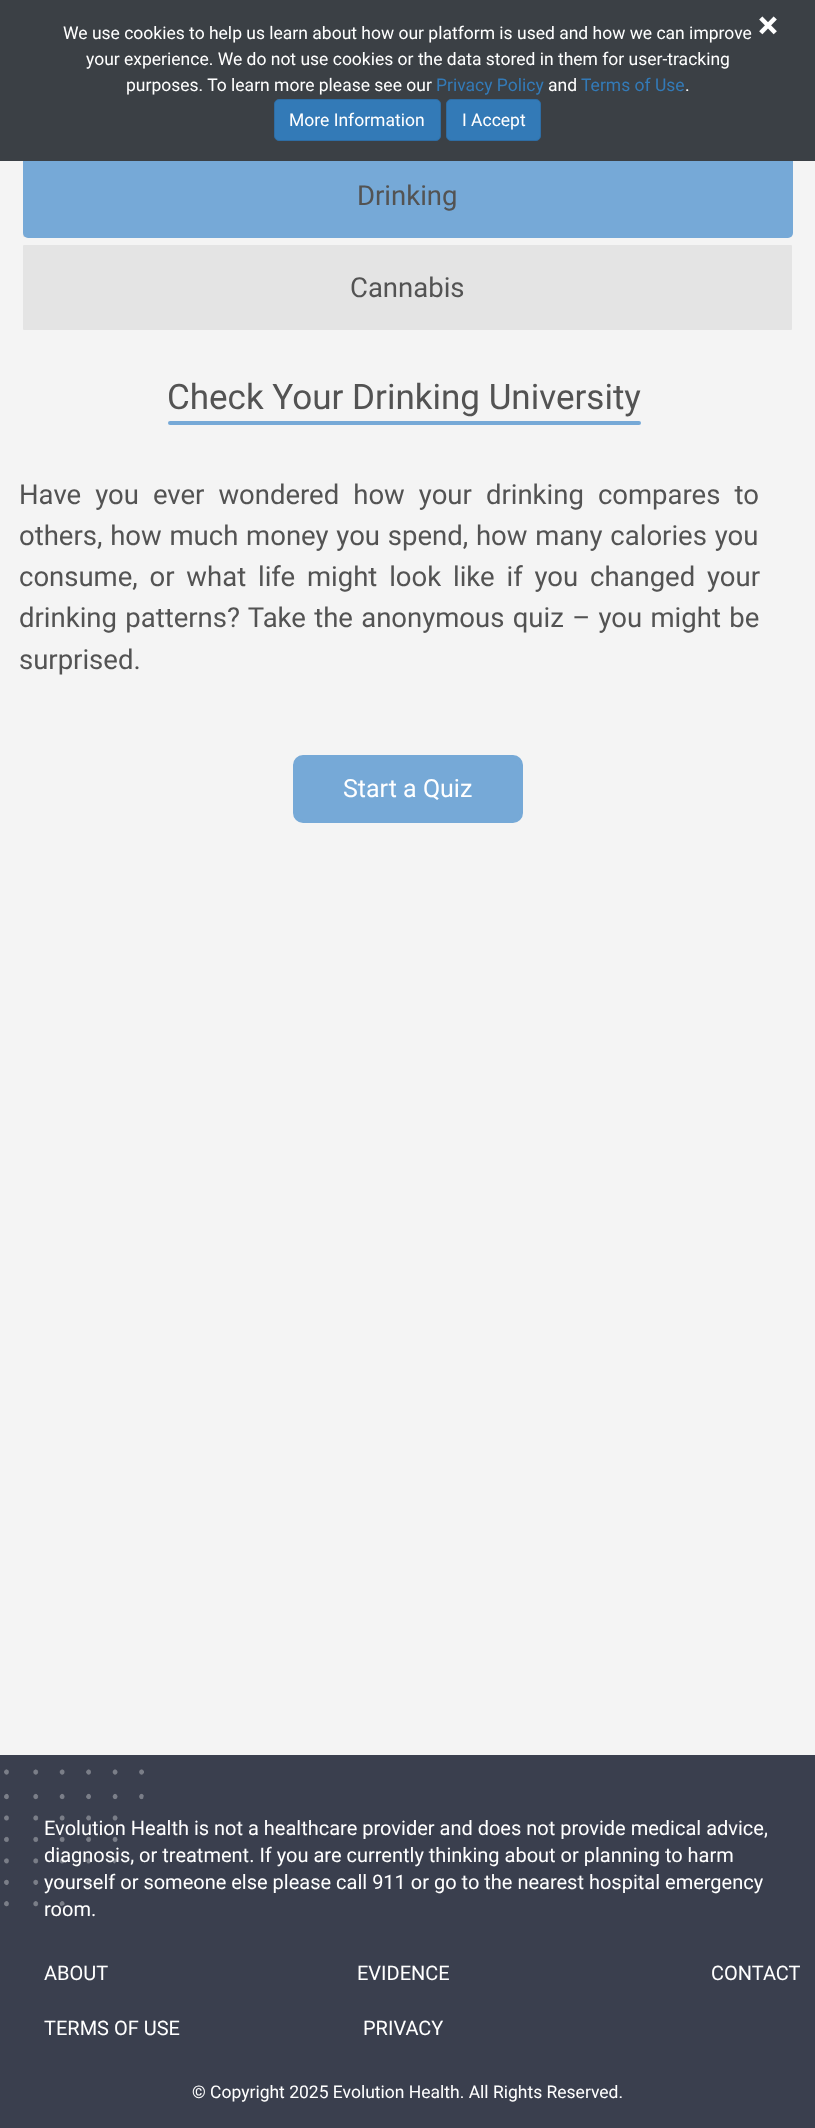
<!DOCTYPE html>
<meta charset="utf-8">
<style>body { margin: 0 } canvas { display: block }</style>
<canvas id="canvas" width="815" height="2128"></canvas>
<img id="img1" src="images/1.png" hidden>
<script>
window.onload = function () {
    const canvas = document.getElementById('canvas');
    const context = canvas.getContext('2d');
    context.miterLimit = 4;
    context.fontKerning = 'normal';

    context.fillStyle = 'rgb(244, 244, 244)';
    context.fillRect(0, 0, 815, 2128);
    context.fillStyle = 'rgb(228, 228, 228)';
    context.beginPath();
    context.roundRect(21, 152, 773, 87, 3);
    context.fill();
    context.strokeStyle = 'rgb(244, 244, 244)';
    context.lineWidth = 4;
    context.stroke();
    context.fillStyle = 'rgb(118, 169, 215)';
    context.beginPath();
    context.roundRect(23, 154, 770, 84, 5);
    context.fill();
    context.fillStyle = 'rgb(59, 64, 69)';
    context.fillRect(0, 0, 815, 161);
    context.fillStyle = 'rgb(51, 122, 183)';
    context.beginPath();
    context.roundRect(274.5, 99.5, 166, 41, 4.5);
    context.fill();
    context.strokeStyle = 'rgb(46, 109, 164)';
    context.lineWidth = 1;
    context.stroke();
    context.beginPath();
    context.roundRect(446.5, 99.5, 94, 41, 4.5);
    context.fill();
    context.stroke();
    context.fillStyle = 'rgb(228, 228, 228)';
    context.beginPath();
    context.roundRect(21, 243, 773, 89, 3);
    context.fill();
    context.strokeStyle = 'rgb(244, 244, 244)';
    context.lineWidth = 4;
    context.stroke();
    context.fillStyle = 'rgb(118, 169, 215)';
    context.beginPath();
    context.roundRect(168, 421, 473, 4, 2);
    context.fill();
    context.beginPath();
    context.roundRect(294.5, 756.5, 227, 65, 8.5);
    context.fill();
    context.strokeStyle = 'rgb(118, 169, 215)';
    context.lineWidth = 3;
    context.stroke();
    context.fillStyle = 'rgb(58, 63, 78)';
    context.fillRect(0, 1755, 815, 373);
    context.font = '17.5px Roboto';
    context.fillStyle = 'rgb(255, 255, 255)';
    context.fillText('We use cookies to help us learn about how our platform is used and how we can improve', 63, 39);
    context.fillText('your experience. We do not use cookies or the data stored in them for user-tracking', 86, 65);
    context.fillText('purposes. To learn more please see our', 126, 91);
    context.fillStyle = 'rgb(51, 122, 183)';
    context.fillText('Privacy Policy', 436, 91);
    context.fillStyle = 'rgb(255, 255, 255)';
    context.fillText('and', 548, 91);
    context.fillStyle = 'rgb(51, 122, 183)';
    context.fillText('Terms of Use', 581, 91);
    context.fillStyle = 'rgb(255, 255, 255)';
    context.fillText('.', 685, 91);
    context.fillText('More Information', 289, 126);
    context.fillText('I Accept', 462, 126);
    context.font = 'bold 38px Roboto';
    context.fillText('×', 758, 38);
    context.font = '27.5px Roboto';
    context.fillStyle = 'rgb(83, 83, 83)';
    context.fillText('Drinking', 357, 205);
    context.fillText('Cannabis', 350, 297);
    context.font = '35px Roboto';
    context.fillText('Check Your Drinking University', 167, 409);
    context.wordSpacing = '7.25px';
    context.font = '27.5px Roboto';
    context.fillText('Have you ever wondered how your drinking compares to', 19, 504);
    context.wordSpacing = '1px';
    context.fillText('others, how much money you spend, how many calories you', 19, 545);
    context.wordSpacing = '5px';
    context.fillText('consume, or what life might look like if you changed your', 19, 586);
    context.wordSpacing = '1.5px';
    context.fillText('drinking patterns? Take the anonymous quiz – you might be', 19, 627);
    context.wordSpacing = '0px';
    context.fillText('surprised.', 19, 669);
    context.font = '25px Roboto';
    context.fillStyle = 'rgb(255, 255, 255)';
    context.fillText('Start a Quiz', 343, 797);
    context.font = '20px Roboto';
    context.fillText('Evolution Health is not a healthcare provider and does not provide medical advice,', 44, 1835);
    context.fillText('diagnosis, or treatment. If you are currently thinking about or planning to harm', 44, 1862);
    context.fillText('yourself or someone else please call 911 or go to the nearest hospital emergency', 44, 1889);
    context.fillText('room.', 44, 1916);
    context.drawImage(document.getElementById('img1'), 4, 1769, 140, 138);
    context.fillText('ABOUT', 44, 1980);
    context.fillText('EVIDENCE', 357, 1980);
    context.fillText('CONTACT', 711, 1980);
    context.fillText('TERMS OF USE', 44, 2035);
    context.fillText('PRIVACY', 363, 2035);
    context.font = '17.5px Roboto';
    context.fillText('© Copyright 2025 Evolution Health. All Rights Reserved.', 192, 2098);
};
</script>
